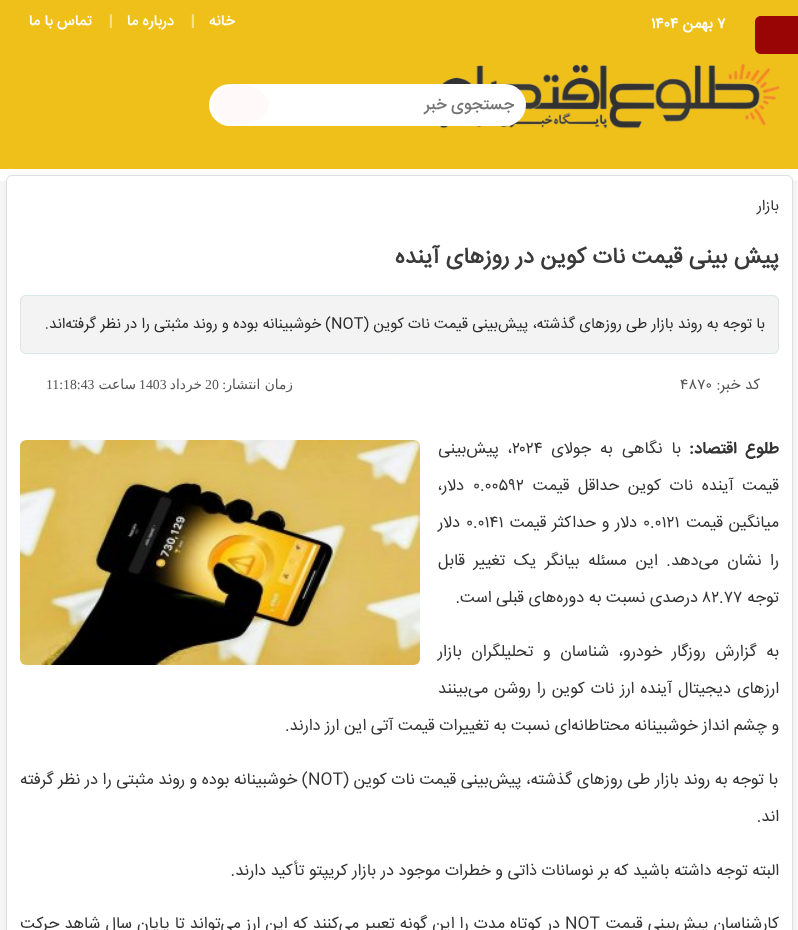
<!DOCTYPE html>
<meta charset="utf-8">
<style>body { margin: 0 } canvas { display: block }</style>
<canvas id="canvas" width="798" height="930"></canvas>
<img id="img1" src="images/1.png" hidden>
<img id="img2" src="images/2.png" hidden>
<script>
window.onload = function () {
    const canvas = document.getElementById('canvas');
    const context = canvas.getContext('2d');
    context.miterLimit = 4;
    context.fontKerning = 'normal';

    context.fillStyle = 'rgb(246, 246, 246)';
    context.fillRect(0, 0, 798, 930);
    context.fillStyle = 'rgb(255, 255, 255)';
    context.beginPath();
    context.moveTo(0, 169);
    context.lineTo(0, 181);
    context.lineTo(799, 181);
    context.lineTo(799, 13);
    context.lineTo(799, 169);
    context.closePath();
    context.fill();
    context.fillStyle = 'rgb(240, 192, 26)';
    context.fillRect(0, 0, 798, 169);
    context.fillStyle = 'rgb(153, 4, 4)';
    context.beginPath();
    context.moveTo(761, 16);
    context.lineTo(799, 16);
    context.lineTo(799, 54);
    context.lineTo(761, 54);
    context.bezierCurveTo(757.5, 54, 755, 51.5, 755, 48);
    context.lineTo(755, 22);
    context.bezierCurveTo(755, 18.5, 757.5, 16, 761, 16);
    context.closePath();
    context.fill();
    context.drawImage(document.getElementById('img1'), 439, 63, 341, 66);
    context.fillStyle = 'rgb(255, 255, 255)';
    context.beginPath();
    context.roundRect(209, 84, 317, 42, 21);
    context.fill();
    context.fillStyle = 'rgb(255, 249, 249)';
    context.beginPath();
    context.ellipse(240.5, 104.5, 28, 19.5, 0, 0, 2 * Math.PI);
    context.fill();
    context.fillStyle = 'rgba(221, 221, 221, 0.41)';
    context.filter = 'blur(2.5px)';
    context.beginPath();
    context.roundRect(6, 176, 787, 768, 6);
    context.fill();
    context.filter = 'none';
    context.fillStyle = 'rgb(255, 255, 255)';
    context.beginPath();
    context.roundRect(6.5, 175.5, 786, 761, 5.5);
    context.fill();
    context.strokeStyle = 'rgb(223, 223, 223)';
    context.stroke();
    context.fillStyle = 'rgb(243, 243, 243)';
    context.beginPath();
    context.roundRect(20, 295, 759, 59, 6);
    context.fill();
    context.beginPath();
    context.roundRect(20.5, 295.5, 758, 58, 5.5);
    context.strokeStyle = 'rgba(207, 227, 227, 0.78)';
    context.stroke();
    context.drawImage(document.getElementById('img2'), 20, 440, 400, 225);
    context.font = 'bold 15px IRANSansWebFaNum';
    context.fillStyle = 'rgb(255, 255, 255)';
    context.fillText('7', 717, 28);
    context.direction = 'rtl';
    context.fillText('بهمن', 713, 28);
    context.direction = 'ltr';
    context.fillText('1404', 651, 28);
    context.direction = 'rtl';
    context.font = '500 15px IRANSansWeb';
    context.fillText('خانه', 235, 25);
    context.save();
    context.beginPath();
    context.rect(180, 8, 15, 20);
    context.clip();
    context.direction = 'ltr';
    context.font = 'bold 20px IRANSansWeb';
    context.fillStyle = 'rgb(248, 224, 141)';
    context.fillText('|', 190, 29);
    context.restore();
    context.fillText('درباره ما', 174, 25);
    context.save();
    context.beginPath();
    context.rect(99, 8, 15, 20);
    context.clip();
    context.direction = 'ltr';
    context.font = 'bold 20px IRANSansWeb';
    context.fillStyle = 'rgb(248, 224, 141)';
    context.fillText('|', 108, 29);
    context.restore();
    context.fillText('تماس با ما', 92, 25);
    context.font = '500 16.5px IRANSansWeb';
    context.fillStyle = 'rgb(117, 117, 117)';
    context.fillText('جستجوی خبر', 514, 109);
    context.font = '15px IRANSansWeb';
    context.fillStyle = 'rgb(51, 51, 51)';
    context.fillText('بازار', 779, 210);
    context.font = 'bold 22.5px IRANSansWeb';
    context.fillStyle = 'rgb(58, 58, 58)';
    context.fillText('پیش بینی قیمت نات کوین در روزهای آینده', 779, 263);
    context.font = '15px IRANSansWeb';
    context.fillStyle = 'rgb(43, 43, 43)';
    context.fillText('با توجه به روند بازار طی روز‌های گذشته، پیش‌بینی قیمت نات کوین (', 765, 328);
    context.direction = 'ltr';
    context.fillText('NOT', 331, 328);
    context.direction = 'rtl';
    context.fillText(') خوشبینانه بوده و روند مثبتی را در نظر گرفته‌اند.', 331, 328);
    context.font = '15px IRANSansWebFaNum';
    context.fillStyle = 'rgb(85, 84, 84)';
    context.fillText('کد خبر:', 760, 389);
    context.direction = 'ltr';
    context.fillText('4870', 680, 389);
    context.direction = 'rtl';
    context.font = '13.75px DejaVu Sans';
    context.fillText('زمان انتشار', 293, 389);
    context.font = '13.75px Liberation Serif';
    context.fillText(':', 226, 389);
    context.direction = 'ltr';
    context.fillText('20', 205, 389);
    context.direction = 'rtl';
    context.font = '13.75px DejaVu Sans';
    context.fillText('خرداد', 202, 389);
    context.direction = 'ltr';
    context.font = '13.75px Liberation Serif';
    context.fillText('1403', 139, 389);
    context.direction = 'rtl';
    context.font = '13.75px DejaVu Sans';
    context.fillText('ساعت', 136, 389);
    context.direction = 'ltr';
    context.font = '13.75px Liberation Serif';
    context.fillText('11:18:43', 46, 389);
    context.wordSpacing = '4.5px';
    context.direction = 'rtl';
    context.font = 'bold 16.25px "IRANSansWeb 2"';
    context.fillStyle = 'rgb(51, 51, 51)';
    context.fillText('طلوع اقتصاد:', 779, 453);
    context.font = '16.25px IRANSansWeb';
    context.fillText('با نگاهی به جولای', 681, 453);
    context.wordSpacing = '0px';
    context.direction = 'ltr';
    context.fillText('۲۰۲۴', 512, 453);
    context.wordSpacing = '4px';
    context.direction = 'rtl';
    context.fillText('، پیش‌بینی', 512, 453);
    context.fillText('قیمت آینده نات کوین حداقل قیمت', 779, 490);
    context.wordSpacing = '0px';
    context.direction = 'ltr';
    context.fillText('۰.۰۰۵۹۲', 473, 490);
    context.direction = 'rtl';
    context.fillText('دلار،', 464, 490);
    context.wordSpacing = '1px';
    context.fillText('میانگین قیمت', 779, 527);
    context.wordSpacing = '0px';
    context.direction = 'ltr';
    context.fillText('۰.۰۱۲۱', 643, 527);
    context.wordSpacing = '1px';
    context.direction = 'rtl';
    context.fillText('دلار و حداکثر قیمت', 637, 527);
    context.wordSpacing = '0px';
    context.direction = 'ltr';
    context.fillText('۰.۰۱۴۱', 466, 527);
    context.direction = 'rtl';
    context.fillText('دلار', 460, 527);
    context.wordSpacing = '4px';
    context.fillText('را نشان می‌دهد. این مسئله بیانگر یک تغییر قابل', 779, 565);
    context.wordSpacing = '0px';
    context.fillText('توجه', 779, 602);
    context.direction = 'ltr';
    context.fillText('۸۲.۷۷', 703, 602);
    context.direction = 'rtl';
    context.fillText('درصدی نسبت به دوره‌های قبلی است.', 698, 602);
    context.wordSpacing = '5px';
    context.fillText('به گزارش روزگار خودرو، شناسان و تحلیلگران بازار', 779, 656);
    context.wordSpacing = '1.25px';
    context.fillText('ارز‌های دیجیتال آینده ارز نات کوین را روشن می‌بینند', 779, 693);
    context.wordSpacing = '0px';
    context.fillText('و چشم انداز خوشبینانه محتاطانه‌ای نسبت به تغییرات قیمت آتی این ارز دارند.', 779, 730);
    context.fillText('با توجه به روند بازار طی روز‌های گذشته، پیش‌بینی قیمت نات کوین (', 778, 784);
    context.direction = 'ltr';
    context.fillText('NOT', 308, 784);
    context.direction = 'rtl';
    context.fillText(') خوشبینانه بوده و روند مثبتی را در نظر گرفته', 308, 784);
    context.fillText('اند.', 779, 821);
    context.fillText('البته توجه داشته باشید که بر نوسانات ذاتی و خطرات موجود در بازار کریپتو تأکید دارند.', 779, 875);
    context.wordSpacing = '0.5px';
    context.fillText('کارشناسان پیش‌بینی قیمت', 779, 928);
    context.wordSpacing = '0px';
    context.direction = 'ltr';
    context.fillText('NOT', 565, 928);
    context.wordSpacing = '0.5px';
    context.direction = 'rtl';
    context.fillText('در کوتاه مدت را این گونه تعبیر می‌کنند که این ارز می‌تواند تا پایان سال شاهد حرکت', 560, 928);
};
</script>
